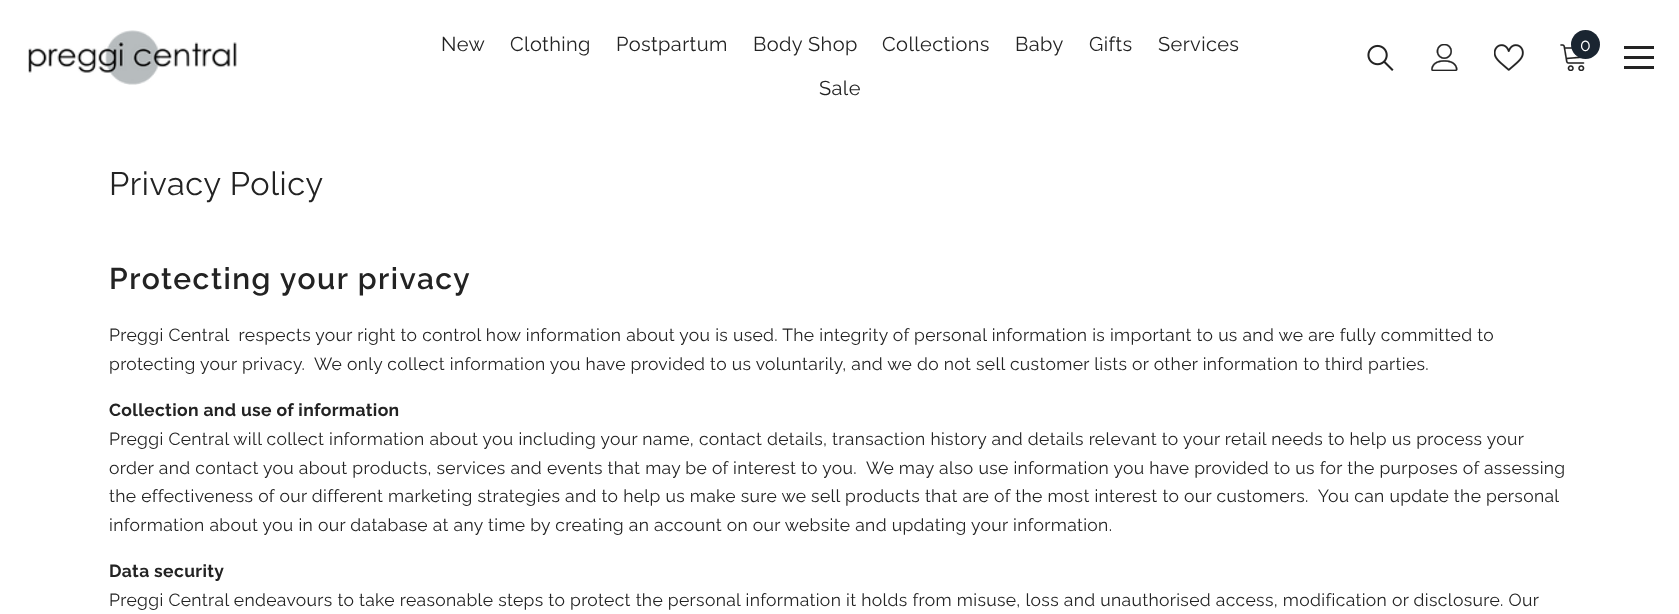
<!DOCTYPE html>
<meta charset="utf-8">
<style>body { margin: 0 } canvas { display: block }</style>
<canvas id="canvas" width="1679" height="614"></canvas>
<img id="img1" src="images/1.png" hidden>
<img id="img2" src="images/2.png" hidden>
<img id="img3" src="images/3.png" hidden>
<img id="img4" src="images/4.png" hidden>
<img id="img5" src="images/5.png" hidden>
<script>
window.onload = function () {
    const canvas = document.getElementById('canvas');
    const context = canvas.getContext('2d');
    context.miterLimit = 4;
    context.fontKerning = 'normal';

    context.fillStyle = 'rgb(255, 255, 255)';
    context.fillRect(0, 0, 1679, 614);
    context.drawImage(document.getElementById('img1'), 28, 30, 209, 55);
    context.drawImage(document.getElementById('img2'), 1367, 44, 27, 27);
    context.drawImage(document.getElementById('img3'), 1431, 44, 27, 27);
    context.drawImage(document.getElementById('img4'), 1494, 44, 30, 27);
    context.drawImage(document.getElementById('img5'), 1560, 44, 25, 27);
    context.fillStyle = 'rgb(26, 37, 49)';
    context.beginPath();
    context.arc(1585.5, 44.5, 14.5, 0, 2 * Math.PI);
    context.fill();
    context.fillStyle = 'rgb(35, 35, 35)';
    context.fillRect(1624, 56, 30, 3);
    context.fillRect(1624, 46, 30, 3);
    context.fillRect(1624, 66, 30, 3);
    context.letterSpacing = '0.4px';
    context.font = '20px Raleway';
    context.fillText('New', 441, 51);
    context.fillText('Clothing', 510, 51);
    context.fillText('Postpartum', 616, 51);
    context.fillText('Body Shop', 753, 51);
    context.fillText('Collections', 882, 51);
    context.fillText('Baby', 1015, 51);
    context.fillText('Gifts', 1089, 51);
    context.fillText('Services', 1158, 51);
    context.fillText('Sale', 819, 95);
    context.letterSpacing = '0px';
    context.font = '17.5px Raleway';
    context.fillStyle = 'rgb(255, 255, 255)';
    context.fillText('0', 1580, 51);
    context.letterSpacing = '0.6px';
    context.font = '32.5px Raleway';
    context.fillStyle = 'rgb(35, 35, 35)';
    context.fillText('Privacy Policy', 109, 195);
    context.letterSpacing = '1.5px';
    context.font = '600 30px Raleway';
    context.fillText('Protecting your privacy', 109, 289);
    context.letterSpacing = '0.35px';
    context.font = '17.5px Raleway';
    context.fillText('Preggi Central  respects your right to control how information about you is used. The integrity of personal information is important to us and we are fully committed to', 109, 341);
    context.fillText('protecting your privacy.  We only collect information you have provided to us voluntarily, and we do not sell customer lists or other information to third parties.', 109, 370);
    context.font = 'bold 17.5px Raleway';
    context.fillText('Collection and use of information', 109, 416);
    context.font = '17.5px Raleway';
    context.fillText('Preggi Central will collect information about you including your name, contact details, transaction history and details relevant to your retail needs to help us process your', 109, 445);
    context.fillText('order and contact you about products, services and events that may be of interest to you.  We may also use information you have provided to us for the purposes of assessing', 109, 474);
    context.fillText('the effectiveness of our different marketing strategies and to help us make sure we sell products that are of the most interest to our customers.  You can update the personal', 109, 502);
    context.fillText('information about you in our database at any time by creating an account on our website and updating your information.', 109, 531);
    context.font = 'bold 17.5px Raleway';
    context.fillText('Data security', 109, 577);
    context.font = '17.5px Raleway';
    context.fillText('Preggi Central endeavours to take reasonable steps to protect the personal information it holds from misuse, loss and unauthorised access, modification or disclosure. Our', 109, 606);
};
</script>
